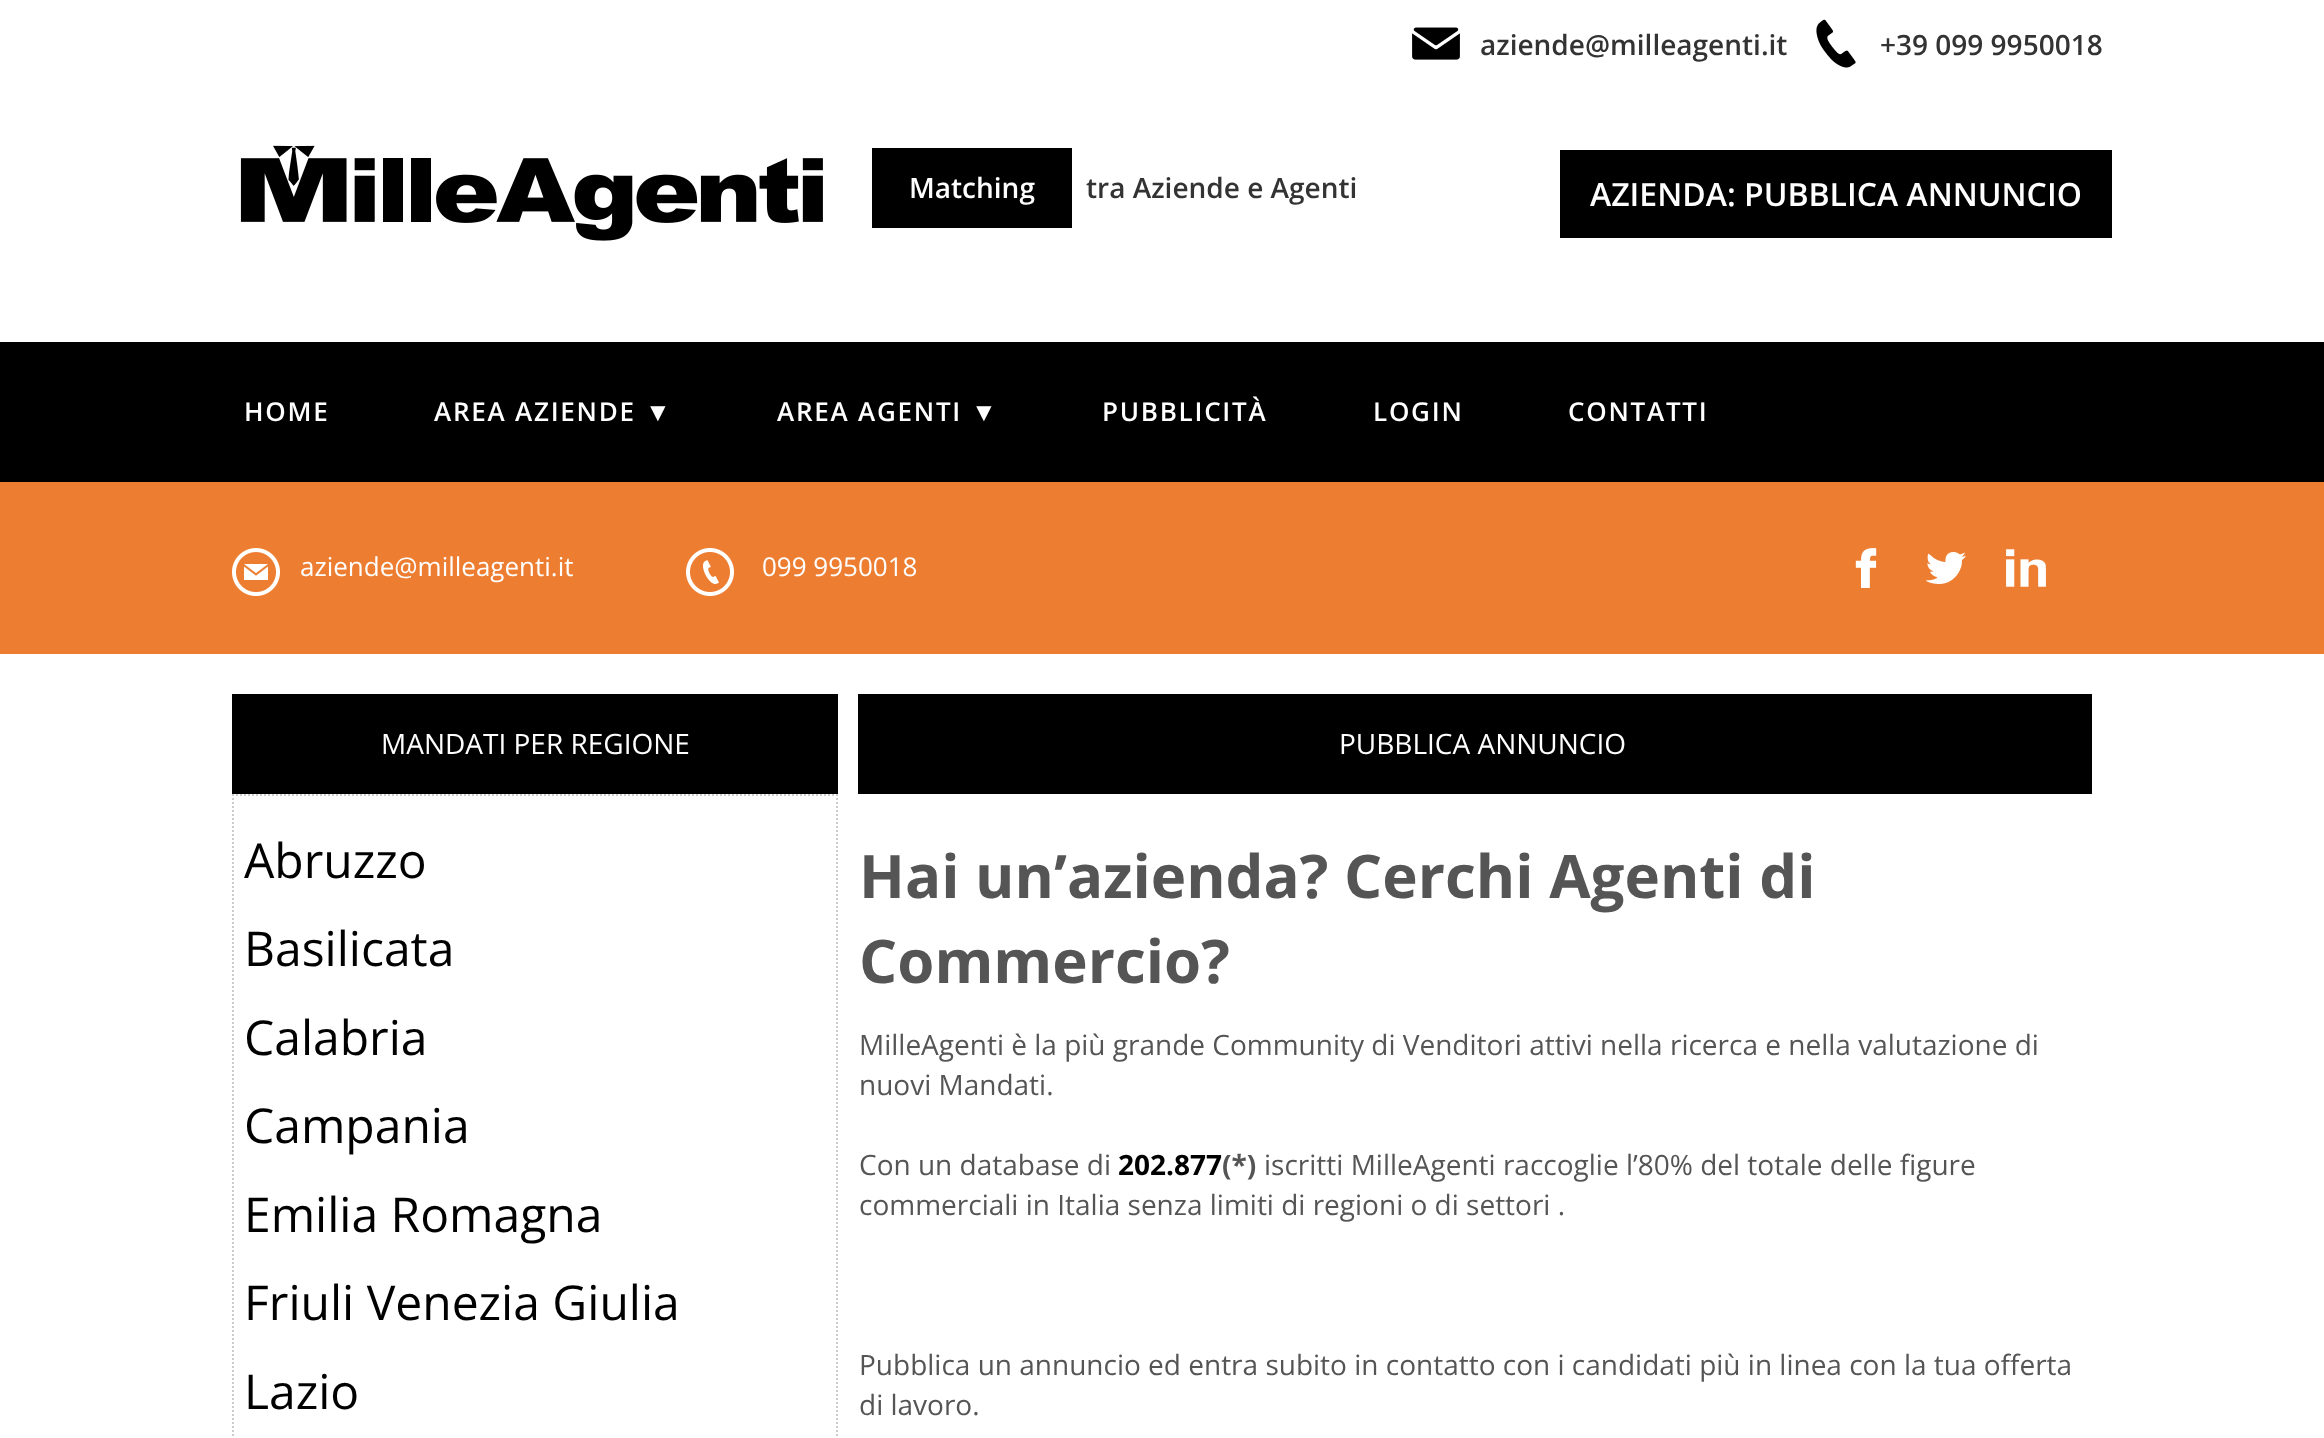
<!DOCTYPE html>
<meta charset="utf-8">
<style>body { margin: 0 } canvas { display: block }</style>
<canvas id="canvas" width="2324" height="1438"></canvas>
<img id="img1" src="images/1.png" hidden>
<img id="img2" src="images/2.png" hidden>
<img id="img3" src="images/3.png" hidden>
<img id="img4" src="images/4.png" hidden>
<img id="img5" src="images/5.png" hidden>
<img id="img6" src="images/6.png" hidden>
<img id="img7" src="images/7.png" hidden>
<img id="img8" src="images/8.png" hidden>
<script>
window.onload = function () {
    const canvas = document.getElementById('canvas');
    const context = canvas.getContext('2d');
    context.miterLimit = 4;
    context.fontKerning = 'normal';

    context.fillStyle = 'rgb(255, 255, 255)';
    context.fillRect(0, 0, 2324, 1438);
    context.drawImage(document.getElementById('img1'), 1412, 27, 48, 33);
    context.drawImage(document.getElementById('img2'), 1816, 19, 40, 49);
    context.drawImage(document.getElementById('img3'), 240, 145, 583, 96);
    context.fillStyle = 'rgb(0, 0, 0)';
    context.fillRect(872, 148, 200, 80);
    context.fillRect(1560, 150, 552, 88);
    context.fillRect(0, 342, 2324, 140);
    context.fillStyle = 'rgb(237, 125, 49)';
    context.fillRect(0, 482, 2324, 172);
    context.drawImage(document.getElementById('img4'), 232, 548, 48, 48);
    context.drawImage(document.getElementById('img5'), 686, 548, 48, 48);
    context.drawImage(document.getElementById('img6'), 1855, 548, 22, 40);
    context.drawImage(document.getElementById('img7'), 1926, 552, 40, 32);
    context.drawImage(document.getElementById('img8'), 2006, 549, 40, 38);
    context.fillStyle = 'rgb(0, 0, 0)';
    context.fillRect(232, 694, 606, 100);
    context.beginPath();
    context.moveTo(232, 795);
    context.lineTo(838, 795);
    context.strokeStyle = 'rgb(204, 204, 204)';
    context.lineWidth = 2;
    context.setLineDash([2, 2]);
    context.stroke();
    context.beginPath();
    context.moveTo(837, 794);
    context.lineTo(837, 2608);
    context.stroke();
    context.beginPath();
    context.moveTo(233, 794);
    context.lineTo(233, 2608);
    context.stroke();
    context.fillRect(858, 694, 1234, 100);
    context.font = '600 28px Open Sans';
    context.fillStyle = 'rgb(51, 51, 51)';
    context.fillText('aziende@milleagenti.it', 1480, 55);
    context.fillText('+39 099 9950018', 1880, 55);
    context.fillStyle = 'rgb(255, 255, 255)';
    context.fillText('Matching', 909, 198);
    context.fillStyle = 'rgb(51, 51, 51)';
    context.fillText('tra Aziende e Agenti', 1086, 198);
    context.font = '600 32px Open Sans';
    context.fillStyle = 'rgb(255, 255, 255)';
    context.fillText('AZIENDA: PUBBLICA ANNUNCIO', 1590, 206);
    context.letterSpacing = '1.75px';
    context.font = '600 26px Open Sans';
    context.fillText('HOME', 244, 421);
    context.fillText('AREA AZIENDE', 434, 421);
    context.font = 'bold 26px Liberation Serif';
    context.fillText('▼', 645, 421);
    context.font = '600 26px Open Sans';
    context.fillText('AREA AGENTI', 777, 421);
    context.font = 'bold 26px Liberation Serif';
    context.fillText('▼', 971, 421);
    context.font = '600 26px Open Sans';
    context.fillText('PUBBLICITÀ', 1102, 421);
    context.fillText('LOGIN', 1373, 421);
    context.fillText('CONTATTI', 1568, 421);
    context.letterSpacing = '0px';
    context.font = '26px Open Sans';
    context.fillText('aziende@milleagenti.it', 300, 576);
    context.fillText('099 9950018', 762, 576);
    context.font = '28px Open Sans';
    context.fillText('MANDATI PER REGIONE', 381, 754);
    context.font = '48px Open Sans';
    context.fillStyle = 'rgb(0, 0, 0)';
    context.fillText('Abruzzo', 244, 878);
    context.fillText('Basilicata', 244, 966);
    context.fillText('Calabria', 244, 1055);
    context.fillText('Campania', 244, 1143);
    context.fillText('Emilia Romagna', 244, 1232);
    context.fillText('Friuli Venezia Giulia', 244, 1320);
    context.fillText('Lazio', 244, 1409);
    context.font = '28px Open Sans';
    context.fillStyle = 'rgb(255, 255, 255)';
    context.fillText('PUBBLICA ANNUNCIO', 1339, 754);
    context.font = 'bold 60px Open Sans';
    context.fillStyle = 'rgb(85, 85, 85)';
    context.fillText('Hai un’azienda? Cerchi Agenti di', 859, 898);
    context.fillText('Commercio?', 859, 983);
    context.font = '28px Open Sans';
    context.fillText('MilleAgenti è la più grande Community di Venditori attivi nella ricerca e nella valutazione di', 859, 1055);
    context.fillText('nuovi Mandati.', 859, 1095);
    context.fillText('Con un database di', 859, 1175);
    context.font = 'bold 28px Open Sans';
    context.fillStyle = 'rgb(0, 0, 0)';
    context.fillText('202.877', 1118, 1175);
    context.fillStyle = 'rgb(85, 85, 85)';
    context.fillText('(*)', 1222, 1175);
    context.font = '28px Open Sans';
    context.fillText('iscritti MilleAgenti raccoglie l’80% del totale delle figure', 1264, 1175);
    context.fillText('commerciali in Italia senza limiti di regioni o di settori .', 859, 1215);
    context.fillText('Pubblica un annuncio ed entra subito in contatto con i candidati più in linea con la tua offerta', 859, 1375);
    context.fillText('di lavoro.', 859, 1415);
};
</script>
